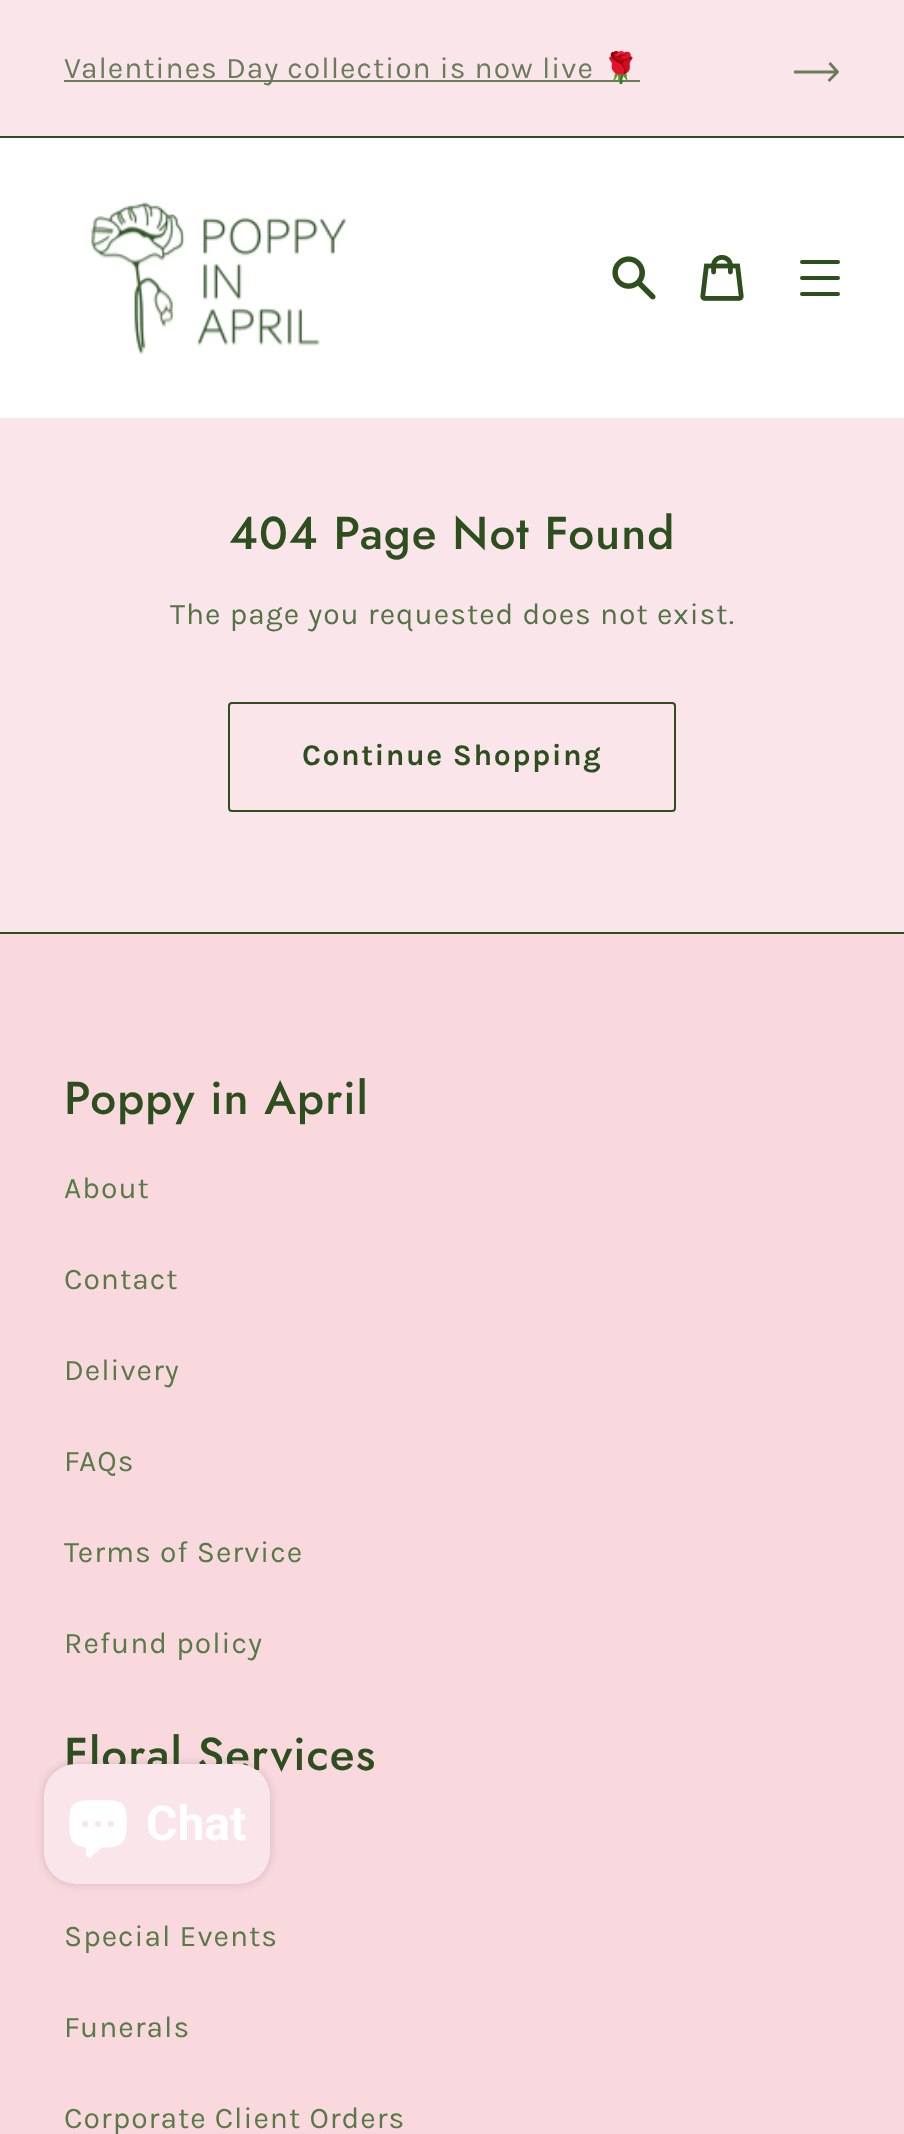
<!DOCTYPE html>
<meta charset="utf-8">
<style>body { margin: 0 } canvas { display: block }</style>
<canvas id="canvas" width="904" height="2134"></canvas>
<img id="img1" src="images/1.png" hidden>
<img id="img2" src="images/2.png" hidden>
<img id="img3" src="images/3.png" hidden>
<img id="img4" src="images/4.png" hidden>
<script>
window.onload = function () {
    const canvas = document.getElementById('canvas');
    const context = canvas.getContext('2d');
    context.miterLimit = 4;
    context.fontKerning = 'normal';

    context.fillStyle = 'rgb(250, 230, 234)';
    context.fillRect(0, 0, 904, 2134);
    context.fillStyle = 'rgb(45, 79, 30)';
    context.fillRect(0, 136, 904, 2);
    context.fillStyle = 'rgb(107, 124, 91)';
    context.fillRect(64, 80, 576, 2);
    context.beginPath();
    context.moveTo(838, 71.5);
    context.lineTo(828.5, 81);
    context.moveTo(829.5, 63);
    context.lineTo(838, 72.5);
    context.moveTo(838, 72);
    context.lineTo(794, 72);
    context.strokeStyle = 'rgb(107, 124, 91)';
    context.lineWidth = 2.8;
    context.stroke();
    context.fillStyle = 'rgb(255, 255, 255)';
    context.fillRect(0, 138, 904, 280);
    context.drawImage(document.getElementById('img1'), 91, 202, 256, 153);
    context.drawImage(document.getElementById('img2'), 612, 256, 44, 44);
    context.drawImage(document.getElementById('img3'), 700, 255, 44, 46);
    context.fillStyle = 'rgb(45, 79, 30)';
    context.beginPath();
    context.roundRect(800, 276, 40, 4, 2);
    context.fill();
    context.beginPath();
    context.roundRect(800, 260, 40, 4, 2);
    context.fill();
    context.beginPath();
    context.roundRect(800, 292, 40, 4, 2);
    context.fill();
    context.beginPath();
    context.roundRect(229, 703, 446, 108, 3);
    context.strokeStyle = 'rgb(45, 79, 30)';
    context.lineWidth = 2;
    context.stroke();
    context.fillStyle = 'rgb(249, 216, 222)';
    context.fillRect(0, 934, 904, 1200);
    context.fillStyle = 'rgb(45, 79, 30)';
    context.fillRect(0, 932, 904, 2);
    context.fillStyle = 'rgba(0, 0, 0, 0.15)';
    context.filter = 'blur(5px)';
    context.beginPath();
    context.roundRect(44, 1764, 226, 120, 32);
    context.fill();
    context.filter = 'none';
    context.letterSpacing = '1px';
    context.font = '30px Karla';
    context.fillStyle = 'rgb(107, 124, 91)';
    context.fillText('Valentines Day collection is now live', 64, 78);
    context.font = '30px Noto Color Emoji';
    context.fillText('🌹', 602, 78);
    context.font = '500 46px Jost';
    context.fillStyle = 'rgb(45, 79, 30)';
    context.fillText('404 Page Not Found', 229, 549);
    context.font = '30px Karla';
    context.fillStyle = 'rgb(83, 115, 68)';
    context.fillText('The page you requested does not exist.', 170, 624);
    context.letterSpacing = '1.5px';
    context.font = 'bold 30px Karla';
    context.fillStyle = 'rgb(45, 79, 30)';
    context.fillText('Continue Shopping', 302, 765);
    context.letterSpacing = '1px';
    context.font = '500 46px Jost';
    context.fillText('Poppy in April', 64, 1114);
    context.font = '30px Karla';
    context.fillStyle = 'rgb(87, 123, 70)';
    context.fillText('About', 64, 1198);
    context.fillText('Contact', 64, 1289);
    context.fillText('Delivery', 64, 1380);
    context.fillText('FAQs', 64, 1471);
    context.fillText('Terms of Service', 64, 1562);
    context.fillText('Refund policy', 64, 1653);
    context.font = '500 46px Jost';
    context.fillStyle = 'rgb(45, 79, 30)';
    context.fillText('Floral Services', 64, 1770);
    context.font = '30px Karla';
    context.fillStyle = 'rgb(87, 123, 70)';
    context.fillText('Special Events', 64, 1946);
    context.fillText('Funerals', 64, 2037);
    context.fillText('Corporate Client Orders', 64, 2128);
    context.fillStyle = 'rgb(250, 230, 234)';
    context.beginPath();
    context.roundRect(44, 1764, 226, 120, 32);
    context.fill();
    context.drawImage(document.getElementById('img4'), 69, 1800, 58, 58);
    context.letterSpacing = '0px';
    context.font = 'bold 48px Roboto';
    context.fillStyle = 'rgb(255, 255, 255)';
    context.fillText('Chat', 146, 1840);
};
</script>
